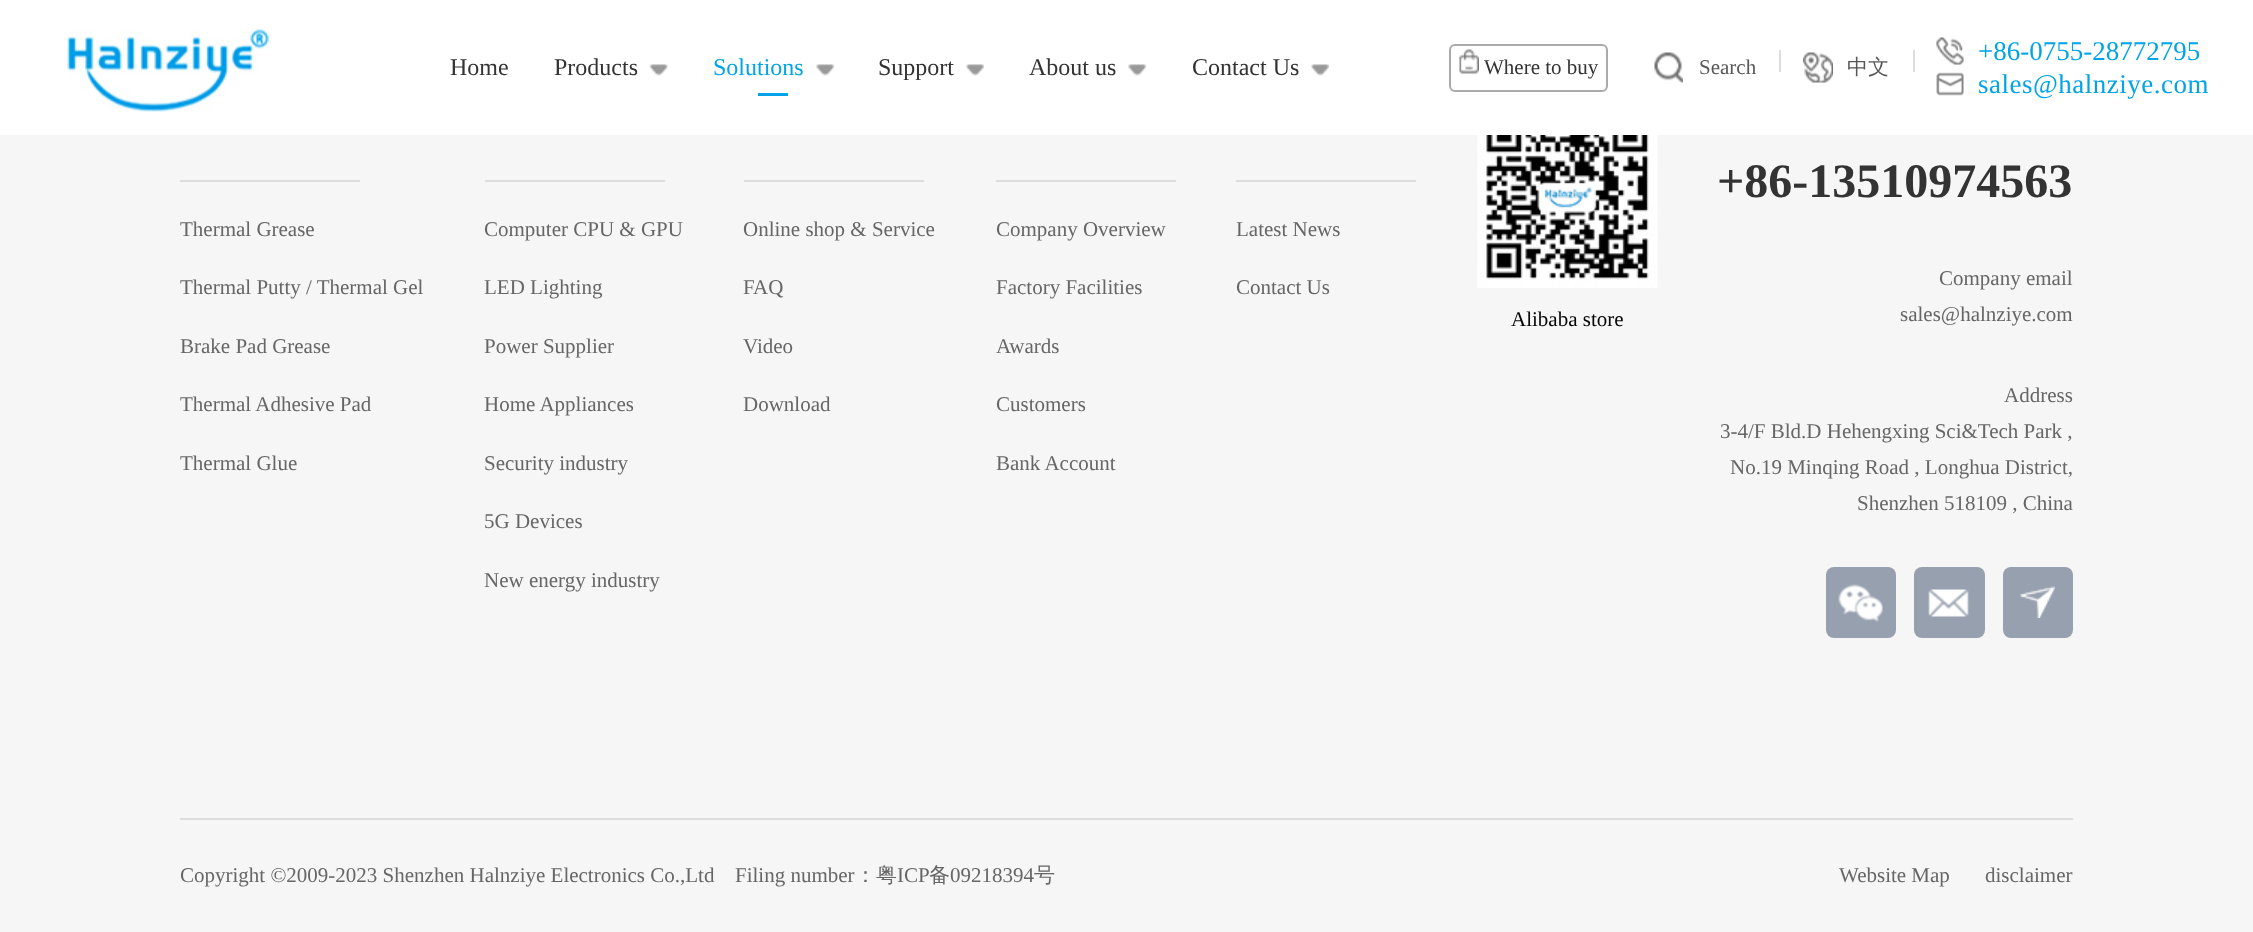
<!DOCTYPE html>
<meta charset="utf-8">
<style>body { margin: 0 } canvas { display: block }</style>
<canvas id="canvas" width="2253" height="932"></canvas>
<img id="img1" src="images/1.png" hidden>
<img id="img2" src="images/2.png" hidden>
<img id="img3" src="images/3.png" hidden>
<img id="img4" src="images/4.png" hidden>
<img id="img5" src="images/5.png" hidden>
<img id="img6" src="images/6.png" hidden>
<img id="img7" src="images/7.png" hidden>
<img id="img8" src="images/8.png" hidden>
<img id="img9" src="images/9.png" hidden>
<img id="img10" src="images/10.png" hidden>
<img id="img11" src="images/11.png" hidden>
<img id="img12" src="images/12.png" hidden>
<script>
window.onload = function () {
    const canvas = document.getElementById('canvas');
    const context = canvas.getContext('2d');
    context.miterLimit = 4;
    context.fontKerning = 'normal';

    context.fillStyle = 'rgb(246, 246, 246)';
    context.fillRect(0, 0, 2253, 932);
    context.fillStyle = 'rgb(255, 255, 255)';
    context.fillRect(0, 0, 2253, 135);
    context.drawImage(document.getElementById('img1'), 67, 29, 202, 83);
    context.drawImage(document.getElementById('img2'), 649, 64, 19, 12);
    context.drawImage(document.getElementById('img3'), 816, 64, 18, 12);
    context.fillStyle = 'rgb(1, 163, 233)';
    context.fillRect(758, 93, 30, 3);
    context.drawImage(document.getElementById('img3'), 966, 64, 18, 12);
    context.drawImage(document.getElementById('img3'), 1128, 64, 18, 12);
    context.drawImage(document.getElementById('img3'), 1311, 64, 18, 12);
    context.beginPath();
    context.roundRect(1450, 45, 157, 46, 5);
    context.strokeStyle = 'rgb(170, 170, 170)';
    context.lineWidth = 2;
    context.stroke();
    context.drawImage(document.getElementById('img4'), 1459, 49, 20, 25);
    context.drawImage(document.getElementById('img5'), 1654, 52, 29, 31);
    context.fillStyle = 'rgb(221, 221, 221)';
    context.fillRect(1779, 50, 2, 22);
    context.drawImage(document.getElementById('img6'), 1803, 52, 30, 31);
    context.fillRect(1913, 50, 2, 22);
    context.drawImage(document.getElementById('img7'), 1936, 37, 28, 28);
    context.drawImage(document.getElementById('img8'), 1936, 72, 28, 24);
    context.fillRect(180, 818, 1893, 2);
    context.fillRect(180, 180, 180, 2);
    context.fillRect(485, 180, 180, 2);
    context.fillRect(744, 180, 180, 2);
    context.fillRect(996, 180, 180, 2);
    context.fillRect(1236, 180, 180, 2);
    context.fillStyle = 'rgb(151, 160, 174)';
    context.beginPath();
    context.roundRect(1826, 567, 70, 71, 8);
    context.fill();
    context.drawImage(document.getElementById('img9'), 1838, 584, 45, 38);
    context.beginPath();
    context.roundRect(1914, 567, 71, 71, 8);
    context.fill();
    context.drawImage(document.getElementById('img10'), 1928, 589, 41, 28);
    context.beginPath();
    context.roundRect(2003, 567, 70, 71, 8);
    context.fill();
    context.drawImage(document.getElementById('img11'), 2020, 586, 35, 32);
    context.drawImage(document.getElementById('img12'), 1477, 135, 181, 153);
    context.font = '24px Liberation Serif';
    context.fillStyle = 'rgb(51, 51, 51)';
    context.fillText('Home', 450, 75);
    context.fillText('Products', 554, 75);
    context.fillStyle = 'rgb(1, 163, 233)';
    context.fillText('Solutions', 713, 75);
    context.fillStyle = 'rgb(51, 51, 51)';
    context.fillText('Support', 878, 75);
    context.fillText('About us', 1029, 75);
    context.fillText('Contact Us', 1192, 75);
    context.font = '21px Liberation Serif';
    context.fillText('Where to buy', 1484, 74);
    context.fillStyle = 'rgb(89, 87, 87)';
    context.fillText('Search', 1699, 74);
    context.font = '500 21px WenQuanYi Zen Hei';
    context.fillText('中文', 1847, 74);
    context.font = '27px Liberation Serif';
    context.fillStyle = 'rgb(1, 163, 233)';
    context.fillText('+86-0755-28772795', 1978, 60);
    context.letterSpacing = '0.5px';
    context.fillText('sales@halnziye.com', 1978, 93);
    context.letterSpacing = '0px';
    context.font = '21px Liberation Serif';
    context.fillStyle = 'rgb(102, 102, 102)';
    context.fillText('Thermal Grease', 180, 236);
    context.fillText('Thermal Putty / Thermal Gel', 180, 294);
    context.fillText('Brake Pad Grease', 180, 353);
    context.fillText('Thermal Adhesive Pad', 180, 411);
    context.fillText('Thermal Glue', 180, 470);
    context.fillText('Computer CPU & GPU', 484, 236);
    context.fillText('LED Lighting', 484, 294);
    context.fillText('Power Supplier', 484, 353);
    context.fillText('Home Appliances', 484, 411);
    context.fillText('Security industry', 484, 470);
    context.fillText('5G Devices', 484, 528);
    context.fillText('New energy industry', 484, 587);
    context.fillText('Online shop & Service', 743, 236);
    context.fillText('FAQ', 743, 294);
    context.fillText('Video', 743, 353);
    context.fillText('Download', 743, 411);
    context.fillText('Company Overview', 996, 236);
    context.fillText('Factory Facilities', 996, 294);
    context.fillText('Awards', 996, 353);
    context.fillText('Customers', 996, 411);
    context.fillText('Bank Account', 996, 470);
    context.fillText('Latest News', 1236, 236);
    context.fillText('Contact Us', 1236, 294);
    context.font = 'bold 48px Liberation Serif';
    context.fillStyle = 'rgb(51, 51, 51)';
    context.fillText('+86-13510974563', 1717, 197);
    context.font = '21px Liberation Serif';
    context.fillStyle = 'rgb(102, 102, 102)';
    context.fillText('Company email', 1939, 285);
    context.fillText('sales@halnziye.com', 1900, 321);
    context.fillText('Address', 2004, 402);
    context.fillText('3-4/F Bld.D Hehengxing Sci&Tech Park ,', 1720, 438);
    context.fillText('No.19 Minqing Road , Longhua District,', 1730, 474);
    context.fillText('Shenzhen 518109 , China', 1857, 510);
    context.fillStyle = 'rgb(5, 5, 5)';
    context.fillText('Alibaba store', 1511, 326);
    context.fillStyle = 'rgb(102, 102, 102)';
    context.fillText('Copyright ©2009-2023 Shenzhen Halnziye Electronics Co.,Ltd', 180, 882);
    context.fillText('Filing number', 735, 882);
    context.font = '500 21px WenQuanYi Zen Hei';
    context.fillText('：粤', 855, 882);
    context.font = '21px Liberation Serif';
    context.fillText('ICP', 897, 882);
    context.font = '500 21px WenQuanYi Zen Hei';
    context.fillText('备', 929, 882);
    context.font = '21px Liberation Serif';
    context.fillText('09218394', 950, 882);
    context.font = '500 21px WenQuanYi Zen Hei';
    context.fillText('号', 1034, 882);
    context.font = '21px Liberation Serif';
    context.fillText('Website Map', 1839, 882);
    context.fillText('disclaimer', 1985, 882);
};
</script>
